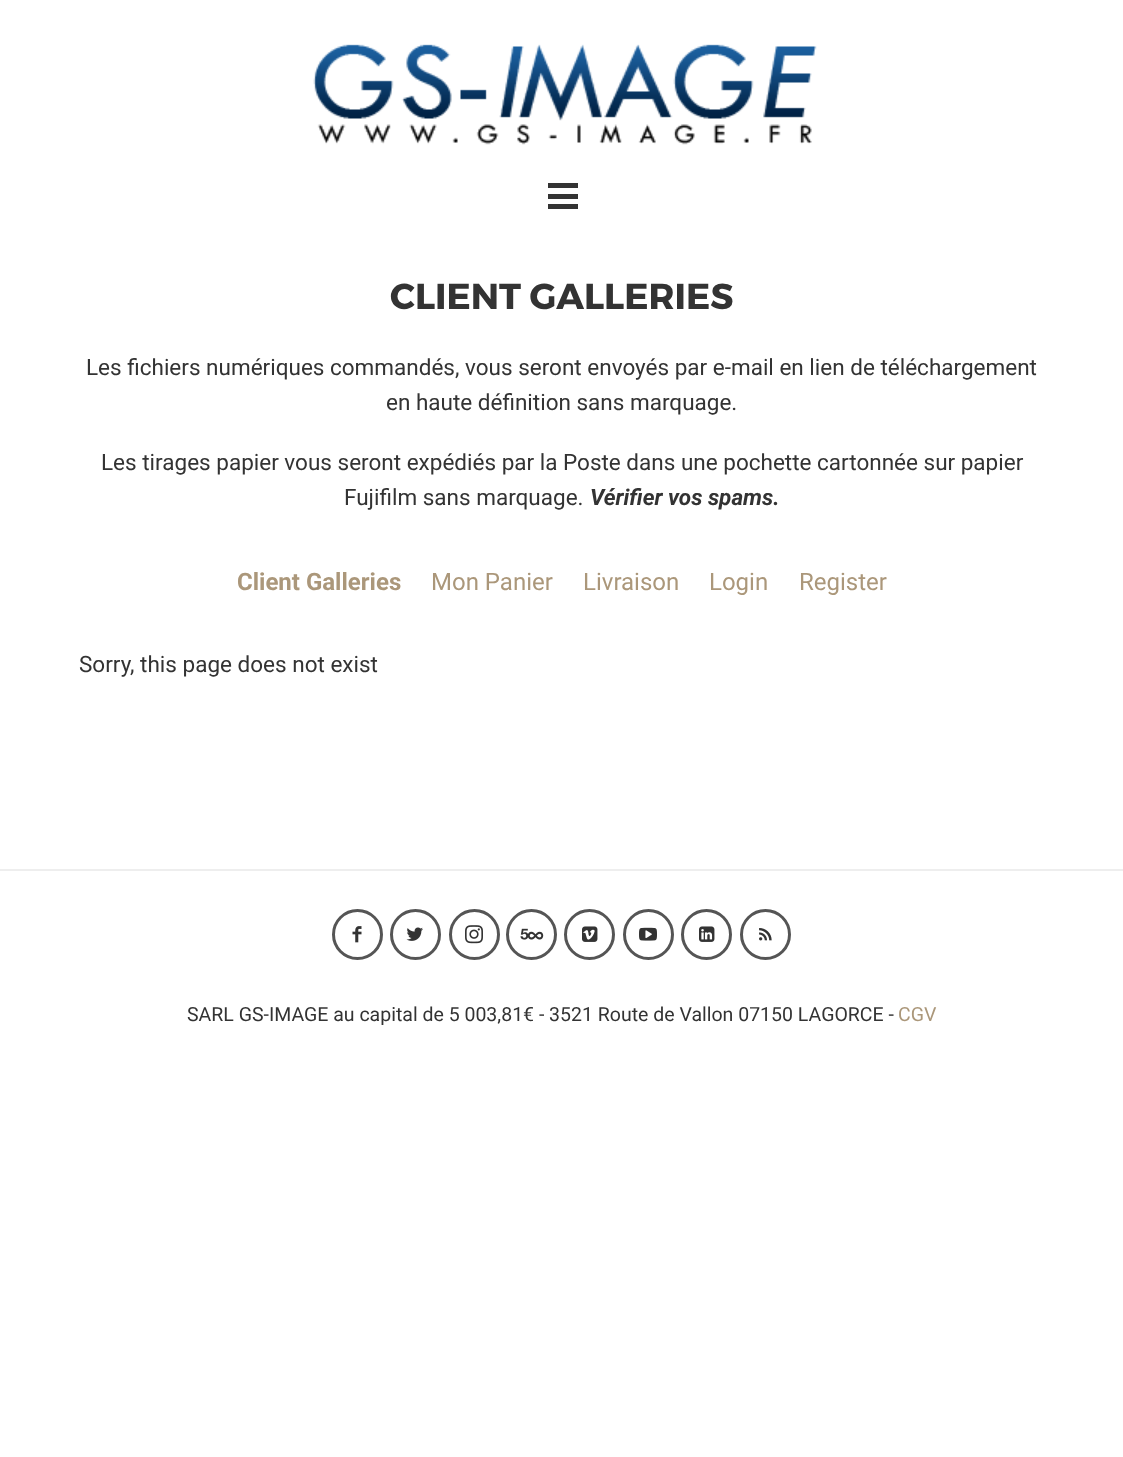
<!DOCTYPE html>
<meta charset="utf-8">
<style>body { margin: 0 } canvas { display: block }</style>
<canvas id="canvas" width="1123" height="1457"></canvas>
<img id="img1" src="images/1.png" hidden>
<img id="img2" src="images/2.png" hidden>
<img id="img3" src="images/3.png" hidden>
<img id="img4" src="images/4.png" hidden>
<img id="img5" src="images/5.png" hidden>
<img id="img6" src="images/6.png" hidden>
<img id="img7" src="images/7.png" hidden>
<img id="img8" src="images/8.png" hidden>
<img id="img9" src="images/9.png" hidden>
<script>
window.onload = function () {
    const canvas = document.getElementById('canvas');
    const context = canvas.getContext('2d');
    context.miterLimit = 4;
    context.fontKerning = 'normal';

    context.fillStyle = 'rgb(255, 255, 255)';
    context.fillRect(0, 0, 1123, 1457);
    context.drawImage(document.getElementById('img1'), 313, 44, 504, 101);
    context.fillStyle = 'rgb(51, 51, 51)';
    context.fillRect(548, 194, 30, 5);
    context.fillRect(548, 183, 30, 5);
    context.fillRect(548, 204, 30, 5);
    context.fillStyle = 'rgb(238, 238, 238)';
    context.fillRect(0, 869, 1123, 2);
    context.beginPath();
    context.arc(357.5, 934.5, 24, 0, 2 * Math.PI);
    context.strokeStyle = 'rgb(85, 85, 85)';
    context.lineWidth = 3;
    context.stroke();
    context.drawImage(document.getElementById('img2'), 352, 926, 10, 17);
    context.beginPath();
    context.arc(415.5, 934.5, 24, 0, 2 * Math.PI);
    context.stroke();
    context.drawImage(document.getElementById('img3'), 406, 927, 17, 14);
    context.beginPath();
    context.arc(474.5, 934.5, 24, 0, 2 * Math.PI);
    context.stroke();
    context.drawImage(document.getElementById('img4'), 465, 925, 18, 19);
    context.beginPath();
    context.arc(531.5, 934.5, 24, 0, 2 * Math.PI);
    context.stroke();
    context.drawImage(document.getElementById('img5'), 520, 928, 24, 12);
    context.beginPath();
    context.arc(589.5, 934.5, 24, 0, 2 * Math.PI);
    context.stroke();
    context.drawImage(document.getElementById('img6'), 582, 926, 16, 16);
    context.beginPath();
    context.arc(648.5, 934.5, 24, 0, 2 * Math.PI);
    context.stroke();
    context.drawImage(document.getElementById('img7'), 639, 927, 18, 14);
    context.beginPath();
    context.arc(706.5, 934.5, 24, 0, 2 * Math.PI);
    context.stroke();
    context.drawImage(document.getElementById('img8'), 699, 926, 16, 16);
    context.beginPath();
    context.arc(765.5, 934.5, 24, 0, 2 * Math.PI);
    context.stroke();
    context.drawImage(document.getElementById('img9'), 759, 928, 13, 13);
    context.font = 'bold 36px Montserrat';
    context.fillStyle = 'rgb(51, 51, 51)';
    context.fillText('CLIENT GALLERIES', 390, 309);
    context.font = '22.5px Roboto';
    context.fillText('Les fichiers numériques commandés, vous seront envoyés par e-mail en lien de téléchargement', 86, 375);
    context.fillText('en haute définition sans marquage.', 386, 410);
    context.fillText('Les tirages papier vous seront expédiés par la Poste dans une pochette cartonnée sur papier', 101, 470);
    context.fillText('Fujifilm sans marquage.', 344, 505);
    context.font = 'italic bold 22.5px Roboto';
    context.fillText('Vérifier vos spams.', 590, 505);
    context.font = 'bold 24px Roboto';
    context.fillStyle = 'rgb(171, 151, 122)';
    context.fillText('Client Galleries', 237, 590);
    context.font = '24px Roboto';
    context.fillText('Mon Panier', 431, 590);
    context.fillText('Livraison', 583, 590);
    context.fillText('Login', 709, 590);
    context.fillText('Register', 799, 590);
    context.font = '22.5px Roboto';
    context.fillStyle = 'rgb(51, 51, 51)';
    context.fillText('Sorry, this page does not exist', 79, 672);
    context.font = '19.5px Roboto';
    context.fillText('SARL GS-IMAGE au capital de 5 003,81€ - 3521 Route de Vallon 07150 LAGORCE -', 187, 1021);
    context.fillStyle = 'rgb(171, 151, 122)';
    context.fillText('CGV', 898, 1021);
};
</script>
